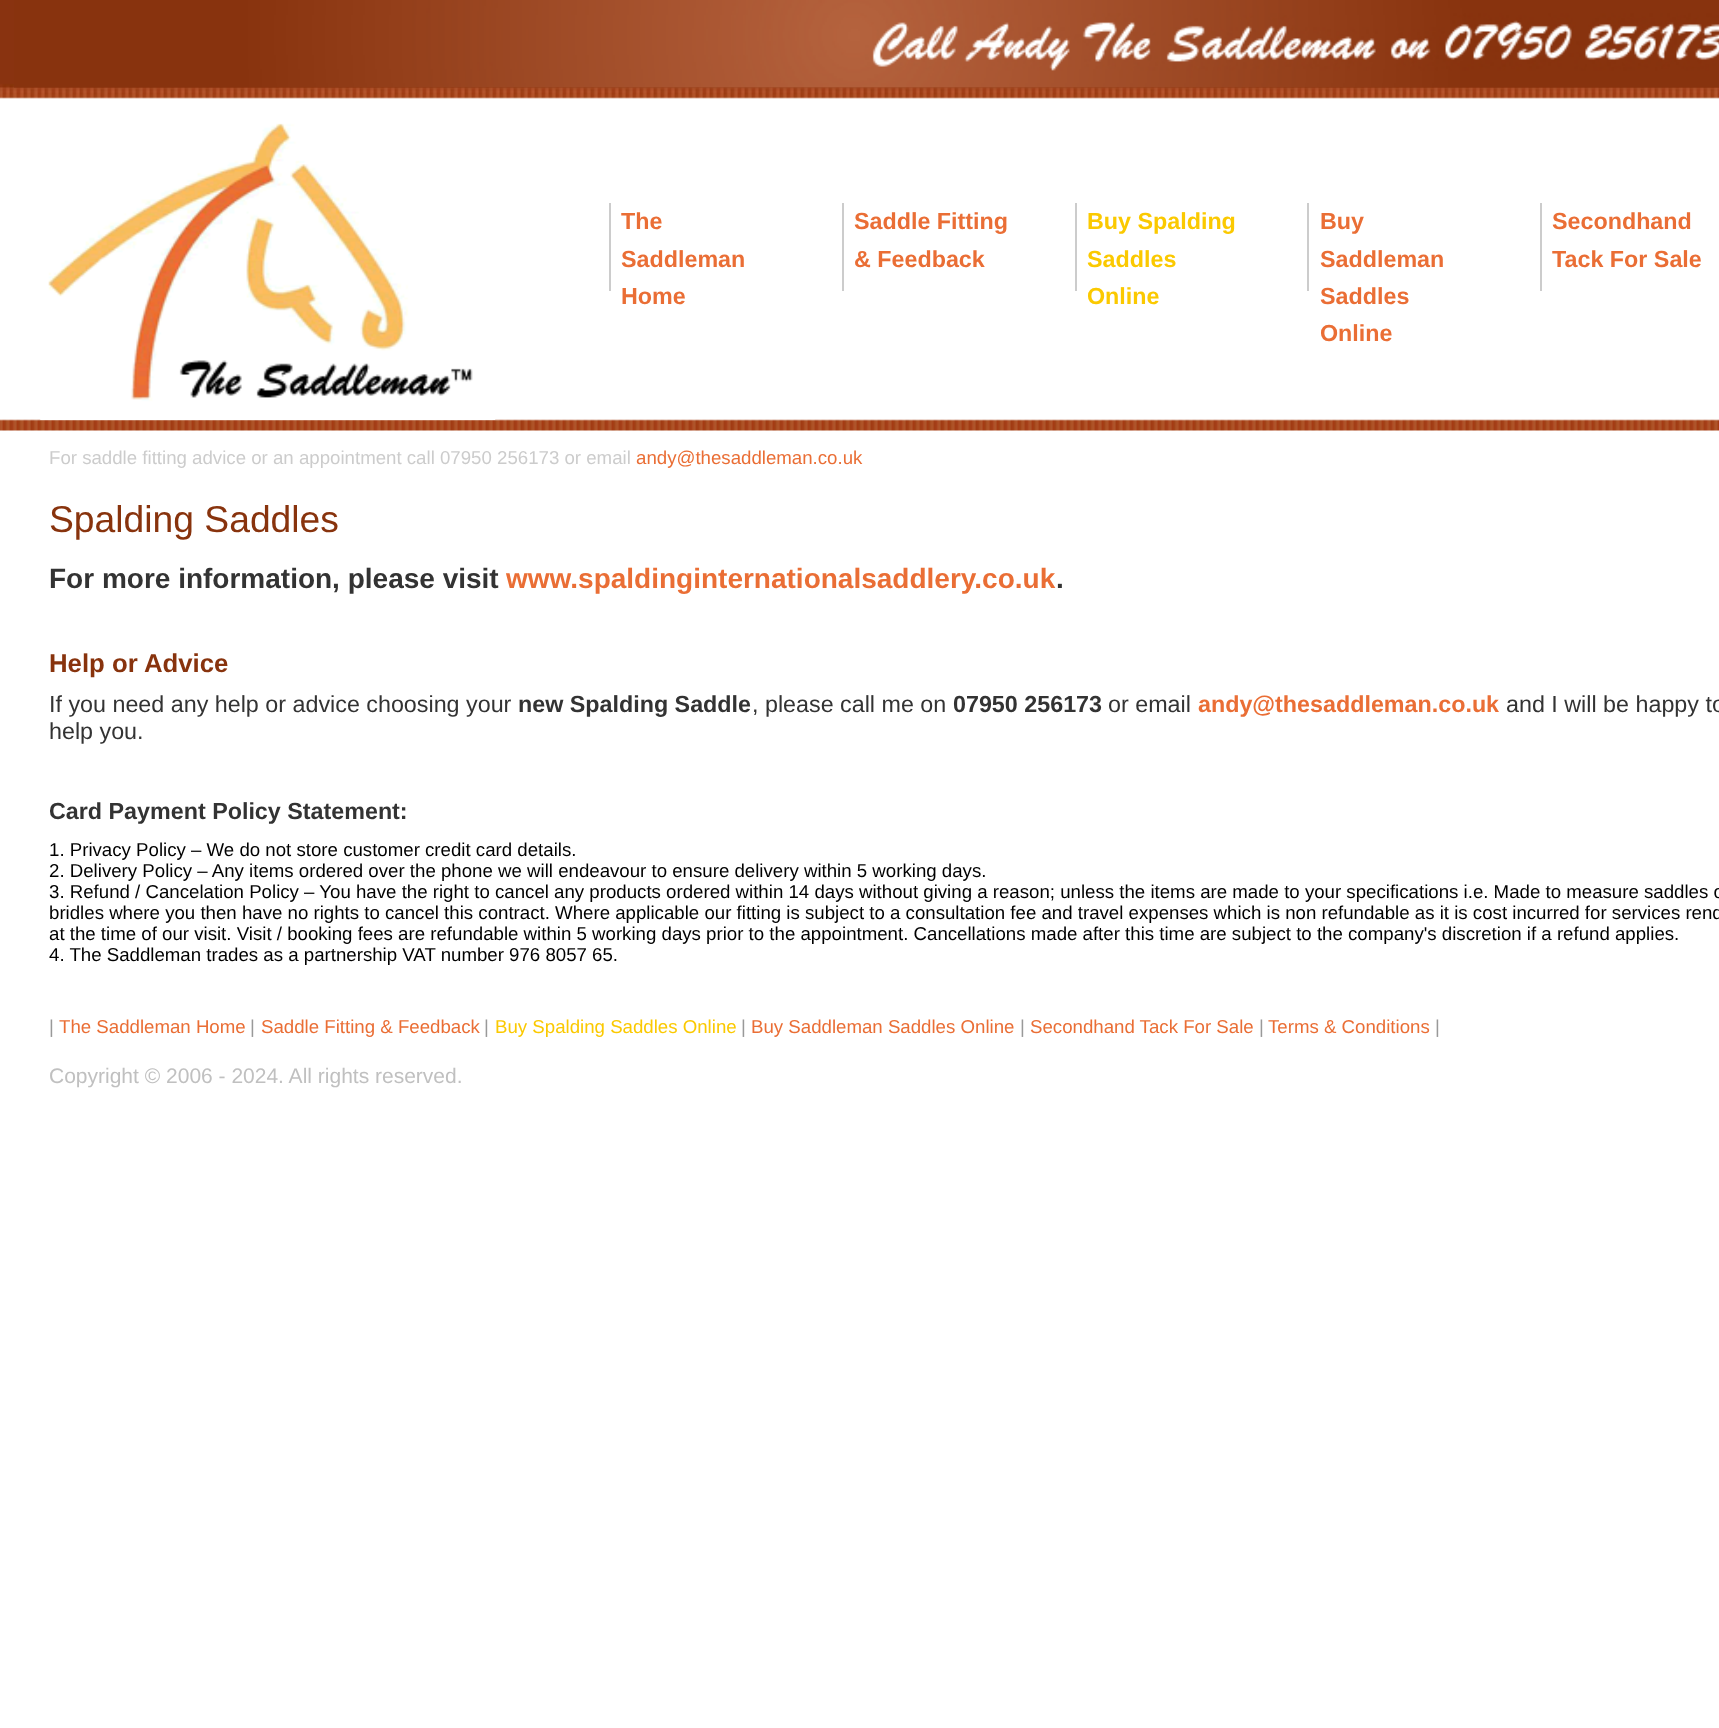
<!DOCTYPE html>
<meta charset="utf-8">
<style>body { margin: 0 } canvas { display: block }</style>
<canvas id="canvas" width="1719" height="1728"></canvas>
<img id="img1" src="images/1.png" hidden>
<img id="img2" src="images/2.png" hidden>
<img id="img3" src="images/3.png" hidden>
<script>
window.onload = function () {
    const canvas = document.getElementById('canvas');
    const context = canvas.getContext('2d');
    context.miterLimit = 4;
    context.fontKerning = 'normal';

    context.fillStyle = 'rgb(255, 255, 255)';
    context.fillRect(0, 0, 1719, 1728);
    context.drawImage(document.getElementById('img1'), 0, 0, 1719, 431);
    context.drawImage(document.getElementById('img2'), 14, 0, 1705, 88);
    context.drawImage(document.getElementById('img3'), 40, 123, 456, 297);
    context.fillStyle = 'rgb(204, 204, 204)';
    context.fillRect(609, 203, 2, 88);
    context.fillRect(842, 203, 2, 88);
    context.fillRect(1075, 203, 2, 88);
    context.fillRect(1307, 203, 2, 88);
    context.fillRect(1540, 203, 2, 88);
    context.font = 'bold 23.3px Liberation Sans';
    context.fillStyle = 'rgb(234, 110, 53)';
    context.fillText('The', 621, 229);
    context.fillText('Saddleman', 621, 267);
    context.fillText('Home', 621, 304);
    context.fillText('Saddle Fitting', 854, 229);
    context.fillText('& Feedback', 854, 267);
    context.fillStyle = 'rgb(251, 201, 0)';
    context.fillText('Buy Spalding', 1087, 229);
    context.fillText('Saddles', 1087, 267);
    context.fillText('Online', 1087, 304);
    context.fillStyle = 'rgb(234, 110, 53)';
    context.fillText('Buy', 1320, 229);
    context.fillText('Saddleman', 1320, 267);
    context.fillText('Saddles', 1320, 304);
    context.fillText('Online', 1320, 341);
    context.fillText('Secondhand', 1552, 229);
    context.fillText('Tack For Sale', 1552, 267);
    context.font = '18.67px Liberation Sans';
    context.fillStyle = 'rgb(204, 204, 204)';
    context.fillText('For saddle fitting advice or an appointment call 07950 256173 or email', 49, 464);
    context.fillStyle = 'rgb(234, 110, 53)';
    context.fillText('andy@thesaddleman.co.uk', 636, 464);
    context.font = '37.25px Liberation Sans';
    context.fillStyle = 'rgb(136, 51, 13)';
    context.fillText('Spalding Saddles', 49, 532);
    context.font = 'bold 28px Liberation Sans';
    context.fillStyle = 'rgb(51, 51, 51)';
    context.fillText('For more information, please visit', 49, 588);
    context.fillStyle = 'rgb(234, 110, 53)';
    context.fillText('www.spaldinginternationalsaddlery.co.uk', 506, 588);
    context.fillStyle = 'rgb(51, 51, 51)';
    context.fillText('.', 1056, 588);
    context.font = 'bold 25.75px Liberation Sans';
    context.fillStyle = 'rgb(136, 51, 13)';
    context.fillText('Help or Advice', 49, 672);
    context.font = '23.3px Liberation Sans';
    context.fillStyle = 'rgb(51, 51, 51)';
    context.fillText('If you need any help or advice choosing your', 49, 712);
    context.font = 'bold 23.3px Liberation Sans';
    context.fillText('new Spalding Saddle', 518, 712);
    context.font = '23.3px Liberation Sans';
    context.fillText(', please call me on', 752, 712);
    context.font = 'bold 23.3px Liberation Sans';
    context.fillText('07950 256173', 953, 712);
    context.font = '23.3px Liberation Sans';
    context.fillText('or email', 1108, 712);
    context.font = 'bold 23.3px Liberation Sans';
    context.fillStyle = 'rgb(234, 110, 53)';
    context.fillText('andy@thesaddleman.co.uk', 1198, 712);
    context.font = '23.3px Liberation Sans';
    context.fillStyle = 'rgb(51, 51, 51)';
    context.fillText('and I will be happy to', 1506, 712);
    context.fillText('help you.', 49, 739);
    context.font = 'bold 23.3px Liberation Sans';
    context.fillText('Card Payment Policy Statement:', 49, 819);
    context.font = '18.67px Liberation Sans';
    context.fillStyle = 'rgb(0, 0, 0)';
    context.fillText('1. Privacy Policy – We do not store customer credit card details.', 49, 856);
    context.fillText('2. Delivery Policy – Any items ordered over the phone we will endeavour to ensure delivery within 5 working days.', 49, 877);
    context.fillText('3. Refund / Cancelation Policy – You have the right to cancel any products ordered within 14 days without giving a reason; unless the items are made to your specifications i.e. Made to measure saddles o', 49, 898);
    context.fillText('bridles where you then have no rights to cancel this contract. Where applicable our fitting is subject to a consultation fee and travel expenses which is non refundable as it is cost incurred for services rend', 49, 919);
    context.fillText('at the time of our visit. Visit / booking fees are refundable within 5 working days prior to the appointment. Cancellations made after this time are subject to the company\'s discretion if a refund applies.', 49, 940);
    context.fillText('4. The Saddleman trades as a partnership VAT number 976 8057 65.', 49, 961);
    context.fillStyle = 'rgb(153, 153, 153)';
    context.fillText('|', 49, 1033);
    context.fillStyle = 'rgb(234, 110, 53)';
    context.fillText('The Saddleman Home', 59, 1033);
    context.fillStyle = 'rgb(153, 153, 153)';
    context.fillText('|', 250, 1033);
    context.fillStyle = 'rgb(234, 110, 53)';
    context.fillText('Saddle Fitting & Feedback', 261, 1033);
    context.fillStyle = 'rgb(153, 153, 153)';
    context.fillText('|', 484, 1033);
    context.fillStyle = 'rgb(251, 201, 0)';
    context.fillText('Buy Spalding Saddles Online', 495, 1033);
    context.fillStyle = 'rgb(153, 153, 153)';
    context.fillText('|', 741, 1033);
    context.fillStyle = 'rgb(234, 110, 53)';
    context.fillText('Buy Saddleman Saddles Online', 751, 1033);
    context.fillStyle = 'rgb(153, 153, 153)';
    context.fillText('|', 1020, 1033);
    context.fillStyle = 'rgb(234, 110, 53)';
    context.fillText('Secondhand Tack For Sale', 1030, 1033);
    context.fillStyle = 'rgb(153, 153, 153)';
    context.fillText('|', 1259, 1033);
    context.fillStyle = 'rgb(234, 110, 53)';
    context.fillText('Terms & Conditions', 1268, 1033);
    context.fillStyle = 'rgb(153, 153, 153)';
    context.fillText('|', 1435, 1033);
    context.font = '21px Liberation Sans';
    context.fillStyle = 'rgb(192, 192, 192)';
    context.fillText('Copyright © 2006 - 2024. All rights reserved.', 49, 1083);
};
</script>
